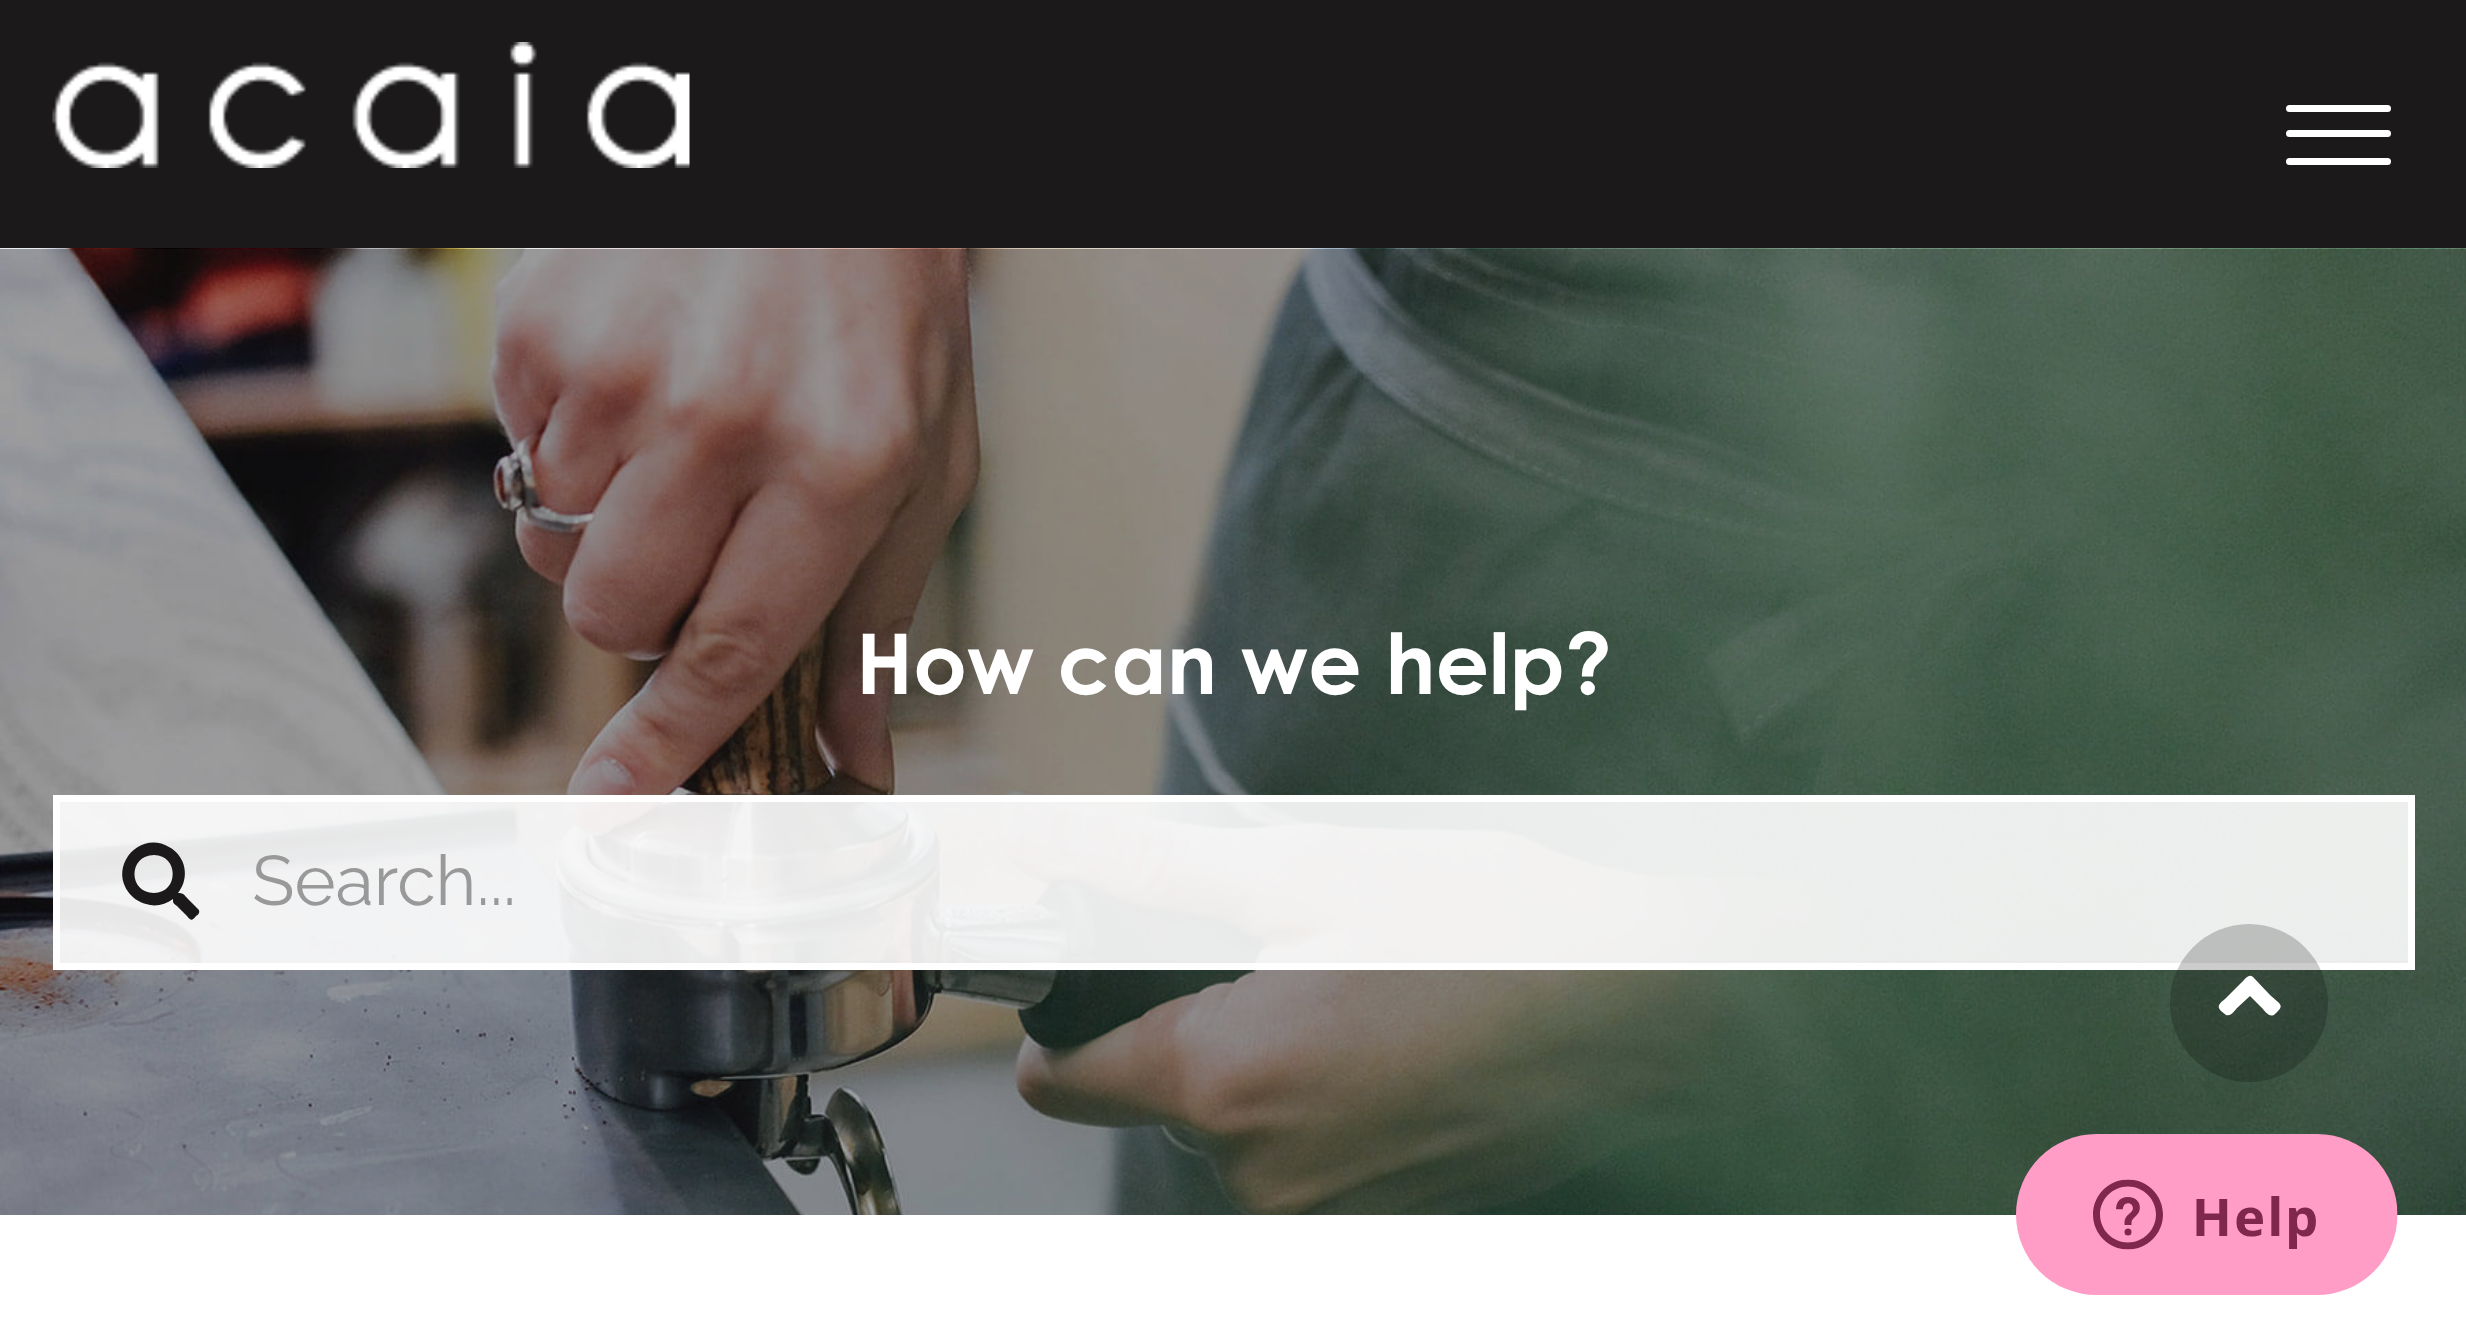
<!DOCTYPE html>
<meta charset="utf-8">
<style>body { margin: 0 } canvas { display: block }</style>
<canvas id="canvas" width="2466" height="1343"></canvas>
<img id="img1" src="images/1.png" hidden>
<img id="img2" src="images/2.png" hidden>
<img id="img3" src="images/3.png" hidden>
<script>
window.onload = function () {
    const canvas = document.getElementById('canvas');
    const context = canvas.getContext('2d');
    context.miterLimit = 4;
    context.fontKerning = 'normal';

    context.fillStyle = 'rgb(255, 255, 255)';
    context.fillRect(0, 0, 2466, 1343);
    context.fillStyle = 'rgb(27, 25, 25)';
    context.fillRect(0, 0, 2466, 248);
    context.drawImage(document.getElementById('img1'), 52, 42, 638, 126);
    context.fillStyle = 'rgb(255, 255, 255)';
    context.beginPath();
    context.roundRect(2286, 130, 105, 7, 3.5);
    context.fill();
    context.beginPath();
    context.roundRect(2286, 105, 105, 7, 3.5);
    context.fill();
    context.beginPath();
    context.roundRect(2286, 158, 105, 7, 3.5);
    context.fill();
    context.drawImage(document.getElementById('img2'), 0, 248, 2466, 967);
    context.fillStyle = 'rgba(255, 255, 255, 0.9)';
    context.beginPath();
    context.rect(56.5, 798.5, 2355, 168);
    context.fill();
    context.strokeStyle = 'rgb(255, 255, 255)';
    context.lineWidth = 7;
    context.stroke();
    context.fillStyle = 'rgb(27, 25, 25)';
    context.beginPath();
    context.moveTo(198, 909);
    context.lineTo(188, 899);
    context.bezierCurveTo(184, 895, 184, 893, 178, 893);
    context.bezierCurveTo(190, 878, 186, 856, 169, 847);
    context.bezierCurveTo(140, 830, 108, 866, 129, 893);
    context.bezierCurveTo(133, 898, 139, 902, 146, 904);
    context.bezierCurveTo(155, 907, 165, 905, 173, 899);
    context.bezierCurveTo(173, 903, 173, 903, 177, 906);
    context.lineTo(187, 916);
    context.bezierCurveTo(191, 921, 192, 921, 196, 916);
    context.bezierCurveTo(198, 915, 201, 912, 198, 909);
    context.closePath();
    context.moveTo(154, 893);
    context.bezierCurveTo(128, 893, 128, 855, 154, 855);
    context.bezierCurveTo(179, 855, 179, 893, 154, 893);
    context.closePath();
    context.fill();
    context.fillStyle = 'rgba(0, 0, 0, 0.2)';
    context.beginPath();
    context.arc(2249, 1003, 79, 0, 2 * Math.PI);
    context.fill();
    context.fillStyle = 'rgb(255, 255, 255)';
    context.beginPath();
    context.moveTo(2253, 977);
    context.lineTo(2270, 995);
    context.bezierCurveTo(2281, 1005, 2285, 1005, 2275, 1014);
    context.bezierCurveTo(2270, 1019, 2265, 1011, 2262, 1008);
    context.lineTo(2250, 996);
    context.lineTo(2237, 1008);
    context.bezierCurveTo(2235, 1010, 2231, 1017, 2226, 1015);
    context.lineTo(2221, 1011);
    context.bezierCurveTo(2216, 1006, 2220, 1003, 2225, 999);
    context.lineTo(2242, 982);
    context.bezierCurveTo(2245, 979, 2249, 973, 2253, 977);
    context.closePath();
    context.fill();
    context.drawImage(document.getElementById('img3'), 2016, 1134, 382, 161);
    context.font = 'bold 84px Century Gothic';
    context.fillText('How can we help?', 856, 694);
    context.font = '100 70px Raleway';
    context.fillStyle = 'rgb(153, 153, 153)';
    context.fillText('Search...', 252, 905);
};
</script>
